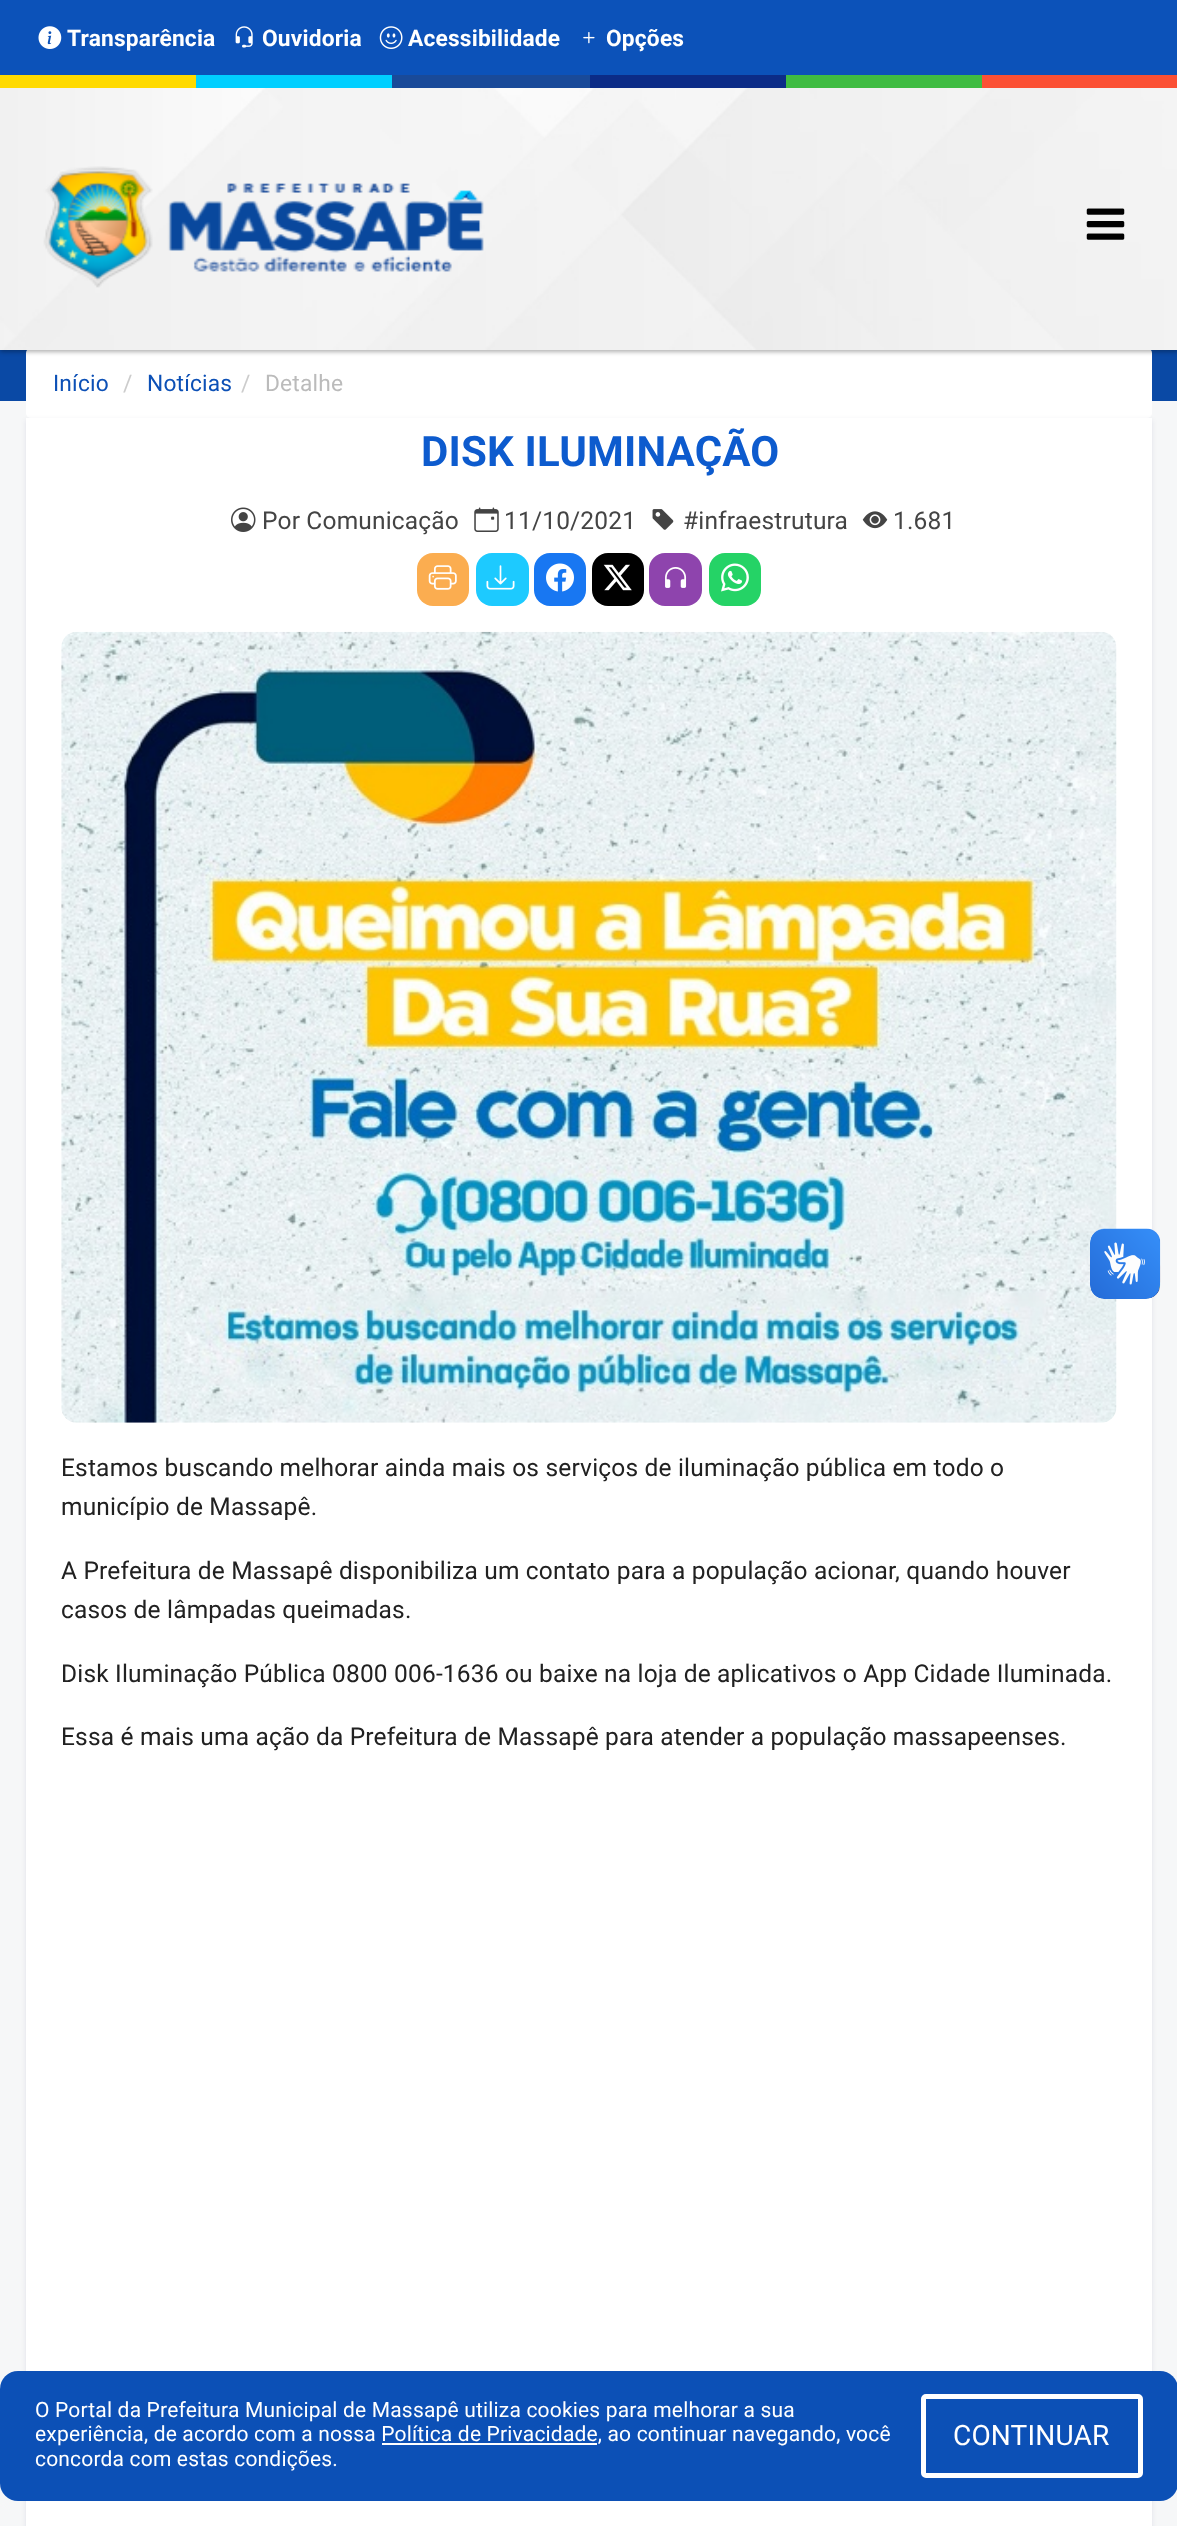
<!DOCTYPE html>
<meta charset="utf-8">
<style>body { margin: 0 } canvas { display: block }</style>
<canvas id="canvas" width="1177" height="2526"></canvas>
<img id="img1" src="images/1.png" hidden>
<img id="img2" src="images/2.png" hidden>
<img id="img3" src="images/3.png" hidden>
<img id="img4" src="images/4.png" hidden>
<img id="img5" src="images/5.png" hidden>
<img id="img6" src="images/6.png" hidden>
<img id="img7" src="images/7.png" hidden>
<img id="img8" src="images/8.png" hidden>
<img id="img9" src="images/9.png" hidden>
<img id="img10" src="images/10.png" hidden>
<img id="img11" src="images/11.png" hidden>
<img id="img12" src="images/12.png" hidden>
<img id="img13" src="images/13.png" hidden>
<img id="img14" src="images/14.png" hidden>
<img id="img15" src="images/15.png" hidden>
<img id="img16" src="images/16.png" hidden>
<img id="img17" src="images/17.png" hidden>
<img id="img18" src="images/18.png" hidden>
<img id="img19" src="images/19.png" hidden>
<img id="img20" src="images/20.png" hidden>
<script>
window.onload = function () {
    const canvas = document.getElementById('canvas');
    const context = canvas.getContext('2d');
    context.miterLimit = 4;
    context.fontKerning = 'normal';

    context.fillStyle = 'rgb(246, 247, 248)';
    context.fillRect(0, 0, 1177, 2526);
    context.fillStyle = 'rgb(10, 73, 165)';
    context.fillRect(0, 350, 1177, 51);
    context.fillStyle = 'rgb(255, 255, 255)';
    context.beginPath();
    context.roundRect(26, 348, 1126, 70, 5);
    context.fill();
    context.fillStyle = 'rgba(0, 0, 0, 0.3)';
    context.filter = 'blur(2px)';
    context.beginPath();
    context.rect(0, 2, 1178, 350);
    context.fill();
    context.filter = 'none';
    context.drawImage(document.getElementById('img1'), 0, 88, 1177, 262);
    context.fillStyle = 'rgb(12, 82, 185)';
    context.fillRect(0, 0, 1177, 75);
    context.drawImage(document.getElementById('img2'), 38, 26, 24, 23);
    context.drawImage(document.getElementById('img3'), 235, 26, 18, 22);
    context.drawImage(document.getElementById('img4'), 379, 26, 24, 23);
    context.drawImage(document.getElementById('img5'), 583, 32, 12, 12);
    context.fillStyle = 'rgb(255, 218, 0)';
    context.fillRect(0, 75, 196, 13);
    context.fillStyle = 'rgb(0, 207, 255)';
    context.fillRect(196, 75, 196, 13);
    context.fillStyle = 'rgb(25, 74, 153)';
    context.fillRect(392, 75, 198, 13);
    context.fillStyle = 'rgb(12, 44, 135)';
    context.fillRect(590, 75, 196, 13);
    context.fillStyle = 'rgb(63, 188, 66)';
    context.fillRect(786, 75, 196, 13);
    context.fillStyle = 'rgb(251, 80, 52)';
    context.fillRect(982, 75, 195, 13);
    context.drawImage(document.getElementById('img6'), 43, 166, 441, 122);
    context.drawImage(document.getElementById('img7'), 1086, 208, 39, 32);
    context.fillStyle = 'rgba(3, 0, 71, 0.09)';
    context.filter = 'blur(2.5px)';
    context.beginPath();
    context.rect(26, 420, 1126, 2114);
    context.fill();
    context.filter = 'none';
    context.fillStyle = 'rgb(255, 255, 255)';
    context.fillRect(26, 418, 1126, 2108);
    context.drawImage(document.getElementById('img8'), 231, 507, 25, 25);
    context.drawImage(document.getElementById('img9'), 474, 507, 25, 25);
    context.drawImage(document.getElementById('img10'), 652, 509, 22, 21);
    context.drawImage(document.getElementById('img11'), 862, 511, 26, 18);
    context.fillStyle = 'rgb(251, 173, 80)';
    context.beginPath();
    context.roundRect(417, 553, 52, 53, 16);
    context.fill();
    context.drawImage(document.getElementById('img12'), 428, 565, 29, 25);
    context.fillStyle = 'rgb(29, 202, 255)';
    context.beginPath();
    context.roundRect(476, 553, 53, 53, 16);
    context.fill();
    context.drawImage(document.getElementById('img13'), 486, 565, 29, 25);
    context.fillStyle = 'rgb(24, 119, 242)';
    context.beginPath();
    context.roundRect(534, 553, 52, 53, 16);
    context.fill();
    context.drawImage(document.getElementById('img14'), 546, 563, 28, 29);
    context.fillStyle = 'rgb(0, 0, 0)';
    context.beginPath();
    context.roundRect(592, 553, 52, 53, 16);
    context.fill();
    context.drawImage(document.getElementById('img15'), 603, 564, 29, 27);
    context.fillStyle = 'rgb(142, 68, 173)';
    context.beginPath();
    context.roundRect(649, 553, 53, 53, 16);
    context.fill();
    context.drawImage(document.getElementById('img16'), 665, 567, 22, 21);
    context.fillStyle = 'rgb(37, 211, 102)';
    context.beginPath();
    context.roundRect(709, 553, 52, 53, 16);
    context.fill();
    context.drawImage(document.getElementById('img17'), 721, 563, 28, 29);
    context.drawImage(document.getElementById('img18'), 61, 631, 1056, 792);
    context.drawImage(document.getElementById('img19'), 1090, 1228, 71, 71);
    context.drawImage(document.getElementById('img20'), 1090, 1229, 70, 70);
    context.fillStyle = 'rgb(12, 80, 182)';
    context.beginPath();
    context.roundRect(0, 2371, 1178, 130, 18);
    context.fill();
    context.fillStyle = 'rgb(255, 255, 255)';
    context.fillRect(382, 2443, 215, 2);
    context.beginPath();
    context.roundRect(923.5, 2396.5, 217, 79, 2.5);
    context.strokeStyle = 'rgb(255, 255, 255)';
    context.lineWidth = 5;
    context.stroke();
    context.letterSpacing = '0.18px';
    context.font = 'bold 22.75px Roboto';
    context.fillText('Transparência', 67, 46);
    context.fillText('Ouvidoria', 262, 46);
    context.fillText('Acessibilidade', 408, 46);
    context.fillText('Opções', 606, 46);
    context.font = '22.75px Roboto';
    context.fillStyle = 'rgb(12, 80, 182)';
    context.fillText('Início', 53, 391);
    context.fillStyle = 'rgb(204, 204, 204)';
    context.fillText('/', 123, 391);
    context.fillStyle = 'rgb(12, 80, 182)';
    context.fillText('Notícias', 147, 391);
    context.fillStyle = 'rgb(204, 204, 204)';
    context.fillText('/', 241, 391);
    context.fillStyle = 'rgb(187, 187, 187)';
    context.fillText('Detalhe', 265, 391);
    context.font = 'bold 42px Roboto';
    context.fillStyle = 'rgb(13, 91, 206)';
    context.fillText('DISK ILUMINAÇÃO', 421, 466);
    context.font = '24.5px Roboto';
    context.fillStyle = 'rgb(68, 68, 68)';
    context.fillText('Por Comunicação', 262, 529);
    context.fillText('11/10/2021', 504, 529);
    context.fillText('#infraestrutura', 683, 529);
    context.fillText('1.681', 893, 529);
    context.fillStyle = 'rgb(33, 33, 33)';
    context.fillText('Estamos buscando melhorar ainda mais os serviços de iluminação pública em todo o', 61, 1476);
    context.fillText('município de Massapê.', 61, 1515);
    context.fillText('A Prefeitura de Massapê disponibiliza um contato para a população acionar, quando houver', 61, 1579);
    context.fillText('casos de lâmpadas queimadas.', 61, 1618);
    context.fillText('Disk Iluminação Pública 0800 006-1636 ou baixe na loja de aplicativos o App Cidade Iluminada.', 61, 1682);
    context.fillText('Essa é mais uma ação da Prefeitura de Massapê para atender a população massapeenses.', 61, 1745);
    context.font = '21px Roboto';
    context.fillStyle = 'rgb(255, 255, 255)';
    context.fillText('O Portal da Prefeitura Municipal de Massapê utiliza cookies para melhorar a sua', 35, 2417);
    context.fillText('experiência, de acordo com a nossa Política de Privacidade, ao continuar navegando, você', 35, 2441);
    context.fillText('concorda com estas condições.', 35, 2466);
    context.font = '28px Roboto';
    context.fillText('CONTINUAR', 953, 2445);
};
</script>
